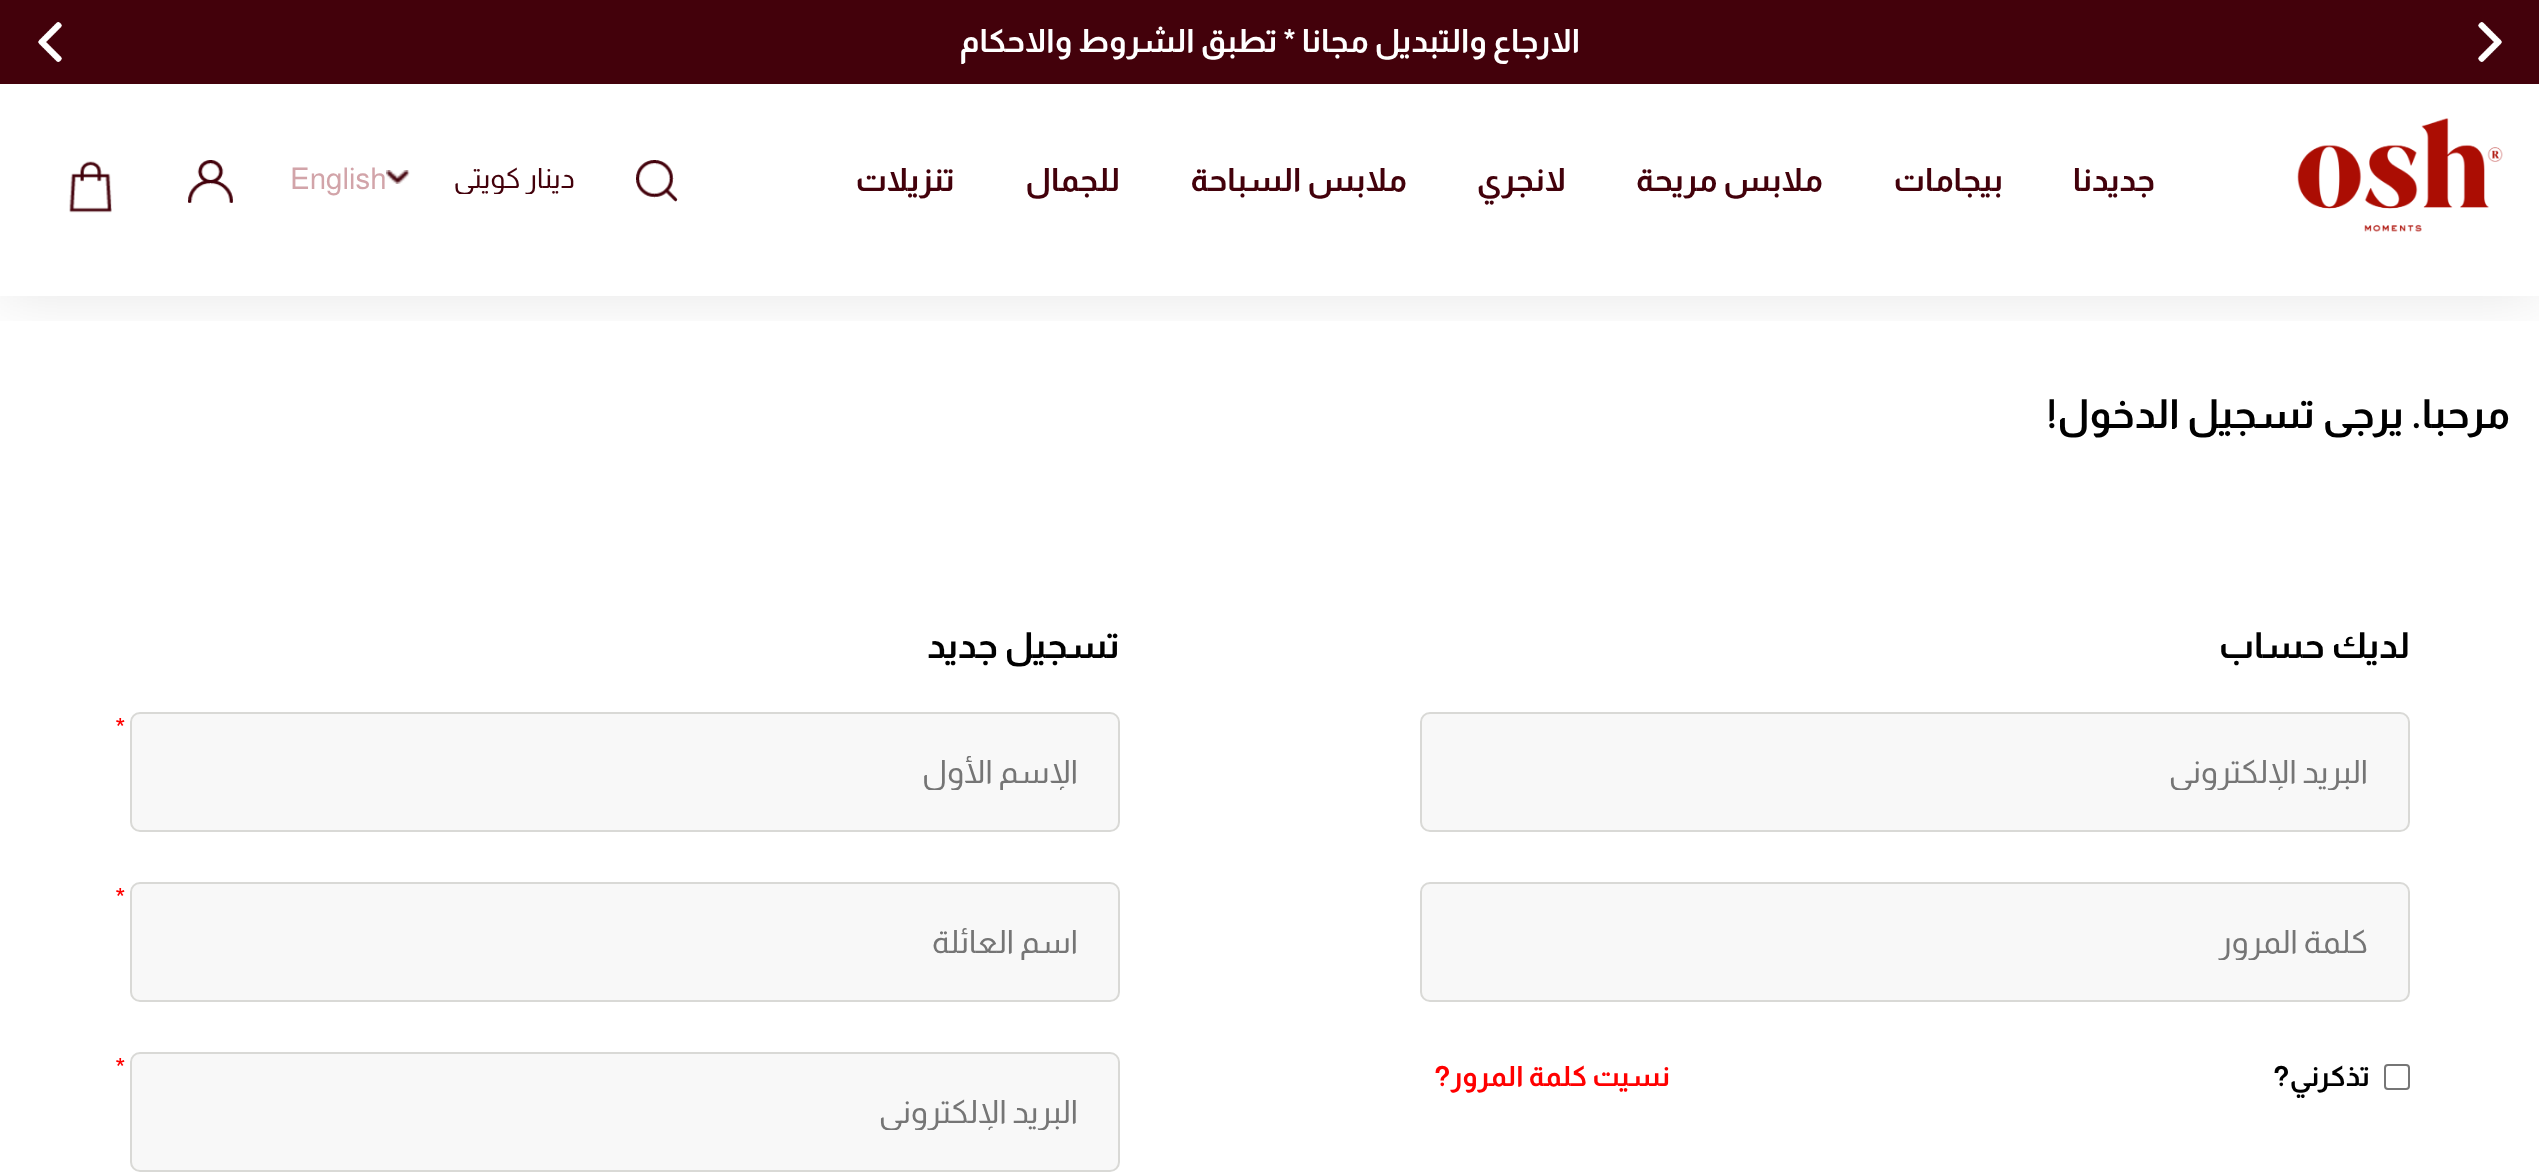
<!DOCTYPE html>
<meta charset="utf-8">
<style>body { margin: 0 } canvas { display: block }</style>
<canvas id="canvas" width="2539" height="1175"></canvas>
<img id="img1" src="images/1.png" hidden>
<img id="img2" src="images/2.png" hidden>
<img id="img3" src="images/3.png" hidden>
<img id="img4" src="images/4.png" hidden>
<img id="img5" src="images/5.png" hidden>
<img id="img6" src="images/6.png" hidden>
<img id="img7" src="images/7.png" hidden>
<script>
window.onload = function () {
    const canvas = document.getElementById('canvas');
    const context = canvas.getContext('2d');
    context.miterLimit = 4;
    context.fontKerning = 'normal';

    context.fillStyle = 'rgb(255, 255, 255)';
    context.fillRect(0, 0, 2539, 1175);
    context.save();
    context.beginPath();
    context.rect(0, 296, 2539, 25);
    context.clip();
    context.fillStyle = 'rgba(0, 0, 0, 0.1)';
    context.filter = 'blur(30px)';
    context.beginPath();
    context.rect(0, 0, 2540, 296);
    context.fill();
    context.filter = 'none';
    context.restore();
    context.fillStyle = 'rgb(67, 1, 11)';
    context.fillRect(0, 0, 2539, 84);
    context.drawImage(document.getElementById('img1'), 2478, 22, 24, 40);
    context.drawImage(document.getElementById('img2'), 38, 22, 24, 40);
    context.drawImage(document.getElementById('img3'), 2297, 118, 206, 114);
    context.drawImage(document.getElementById('img4'), 636, 160, 42, 42);
    context.drawImage(document.getElementById('img5'), 386, 170, 24, 14);
    context.drawImage(document.getElementById('img6'), 188, 160, 45, 43);
    context.drawImage(document.getElementById('img7'), 69, 161, 43, 52);
    context.fillStyle = 'rgb(248, 248, 248)';
    context.beginPath();
    context.roundRect(1421, 713, 988, 118, 9);
    context.fill();
    context.strokeStyle = 'rgb(217, 217, 214)';
    context.lineWidth = 2;
    context.stroke();
    context.beginPath();
    context.roundRect(1421, 883, 988, 118, 9);
    context.fill();
    context.stroke();
    context.beginPath();
    context.roundRect(2385, 1065, 24, 24, 3);
    context.strokeStyle = 'rgb(118, 118, 118)';
    context.stroke();
    context.beginPath();
    context.roundRect(131, 713, 988, 118, 9);
    context.fill();
    context.strokeStyle = 'rgb(217, 217, 214)';
    context.stroke();
    context.beginPath();
    context.roundRect(131, 883, 988, 118, 9);
    context.fill();
    context.stroke();
    context.beginPath();
    context.roundRect(131, 1053, 988, 118, 9);
    context.fill();
    context.stroke();
    context.direction = 'rtl';
    context.font = 'bold 32px Almarai';
    context.fillStyle = 'rgb(255, 255, 255)';
    context.fillText('الارجاع والتبديل مجانا * تطبق الشروط والاحكام', 1580, 52);
    context.fillStyle = 'rgb(67, 1, 11)';
    context.fillText('جديدنا', 2155, 191);
    context.fillText('بيجامات', 2003, 191);
    context.fillText('ملابس مريحة', 1823, 191);
    context.fillText('لانجري', 1566, 191);
    context.fillText('ملابس السباحة', 1407, 191);
    context.fillText('للجمال', 1120, 191);
    context.fillText('تنزيلات', 955, 191);
    context.save();
    context.beginPath();
    context.rect(426, 162, 148, 32);
    context.clip();
    context.font = '28px Almarai';
    context.fillText('دينار كويتي', 575, 188);
    context.restore();
    context.direction = 'ltr';
    context.font = '30px Almarai';
    context.fillStyle = 'rgb(210, 164, 169)';
    context.fillText('English', 290, 189);
    context.direction = 'rtl';
    context.font = 'bold 40px Almarai';
    context.fillStyle = 'rgb(0, 0, 0)';
    context.fillText('مرحبا. يرجى تسجيل الدخول!', 2510, 428);
    context.font = 'bold 36px Almarai';
    context.fillText('لديك حساب', 2410, 658);
    context.save();
    context.beginPath();
    context.rect(1462, 756, 906, 34);
    context.clip();
    context.font = '32px Almarai';
    context.fillStyle = 'rgb(117, 117, 117)';
    context.fillText('البريد الإلكتروني', 2368, 783);
    context.restore();
    context.save();
    context.beginPath();
    context.rect(1462, 926, 906, 34);
    context.clip();
    context.font = '32px Almarai';
    context.fillStyle = 'rgb(117, 117, 117)';
    context.fillText('كلمة المرور', 2368, 953);
    context.restore();
    context.font = 'bold 28px Almarai';
    context.fillText('تذكرني?', 2370, 1086);
    context.fillStyle = 'rgb(255, 0, 0)';
    context.fillText('نسيت كلمة المرور?', 1670, 1086);
    context.font = 'bold 36px Almarai';
    context.fillStyle = 'rgb(0, 0, 0)';
    context.fillText('تسجيل جديد', 1120, 658);
    context.direction = 'ltr';
    context.font = '28px Almarai';
    context.fillStyle = 'rgb(255, 0, 0)';
    context.fillText('*', 115, 738);
    context.save();
    context.beginPath();
    context.rect(172, 756, 906, 34);
    context.clip();
    context.direction = 'rtl';
    context.font = '32px Almarai';
    context.fillStyle = 'rgb(117, 117, 117)';
    context.fillText('الإسم الأول', 1078, 783);
    context.restore();
    context.fillText('*', 115, 908);
    context.save();
    context.beginPath();
    context.rect(172, 926, 906, 34);
    context.clip();
    context.direction = 'rtl';
    context.font = '32px Almarai';
    context.fillStyle = 'rgb(117, 117, 117)';
    context.fillText('اسم العائلة', 1078, 953);
    context.restore();
    context.fillText('*', 115, 1078);
    context.save();
    context.beginPath();
    context.rect(172, 1096, 906, 34);
    context.clip();
    context.direction = 'rtl';
    context.font = '32px Almarai';
    context.fillStyle = 'rgb(117, 117, 117)';
    context.fillText('البريد الإلكتروني', 1078, 1123);
    context.restore();
};
</script>
